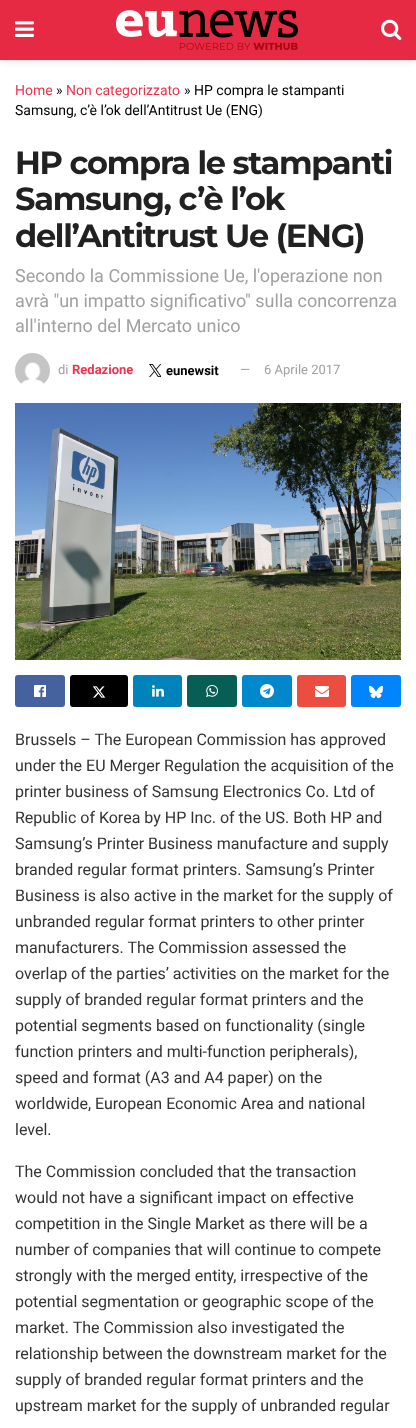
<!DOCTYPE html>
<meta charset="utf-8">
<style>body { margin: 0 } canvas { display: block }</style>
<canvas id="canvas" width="416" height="1428"></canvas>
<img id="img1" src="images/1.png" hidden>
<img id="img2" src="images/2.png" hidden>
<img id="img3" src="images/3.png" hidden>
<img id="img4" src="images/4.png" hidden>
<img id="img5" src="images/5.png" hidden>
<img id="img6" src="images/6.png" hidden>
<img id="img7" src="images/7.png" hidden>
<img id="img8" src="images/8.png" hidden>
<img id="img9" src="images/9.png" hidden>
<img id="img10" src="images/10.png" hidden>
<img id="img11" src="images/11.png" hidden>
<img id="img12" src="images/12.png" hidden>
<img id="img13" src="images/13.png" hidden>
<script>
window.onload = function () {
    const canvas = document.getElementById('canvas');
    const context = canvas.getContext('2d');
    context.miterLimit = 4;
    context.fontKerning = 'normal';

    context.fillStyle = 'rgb(255, 255, 255)';
    context.fillRect(0, 0, 416, 1428);
    context.fillStyle = 'rgba(0, 0, 0, 0.1)';
    context.filter = 'blur(3px)';
    context.beginPath();
    context.rect(0, 2, 416, 60);
    context.fill();
    context.filter = 'none';
    context.fillStyle = 'rgb(230, 42, 68)';
    context.fillRect(0, 0, 416, 60);
    context.drawImage(document.getElementById('img1'), 15, 21, 19, 16);
    context.drawImage(document.getElementById('img2'), 116, 10, 182, 40);
    context.drawImage(document.getElementById('img3'), 381, 19, 21, 22);
    context.drawImage(document.getElementById('img4'), 15, 353, 35, 31);
    context.drawImage(document.getElementById('img5'), 149, 364, 12, 13);
    context.drawImage(document.getElementById('img6'), 15, 403, 386, 257);
    context.fillStyle = 'rgb(69, 98, 159)';
    context.beginPath();
    context.roundRect(15, 675, 50, 32, 3);
    context.fill();
    context.drawImage(document.getElementById('img7'), 34, 685, 12, 12);
    context.fillStyle = 'rgb(0, 0, 0)';
    context.beginPath();
    context.roundRect(70, 675, 58, 32, 3);
    context.fill();
    context.drawImage(document.getElementById('img8'), 92, 686, 14, 12);
    context.fillStyle = 'rgb(0, 131, 187)';
    context.beginPath();
    context.roundRect(133, 675, 49, 32, 3);
    context.fill();
    context.drawImage(document.getElementById('img9'), 152, 685, 12, 12);
    context.fillStyle = 'rgb(7, 94, 84)';
    context.beginPath();
    context.roundRect(187, 675, 50, 32, 3);
    context.fill();
    context.drawImage(document.getElementById('img10'), 206, 685, 12, 12);
    context.fillStyle = 'rgb(0, 136, 204)';
    context.beginPath();
    context.roundRect(242, 675, 50, 32, 3);
    context.fill();
    context.drawImage(document.getElementById('img11'), 260, 684, 14, 14);
    context.fillStyle = 'rgb(235, 77, 63)';
    context.beginPath();
    context.roundRect(297, 675, 49, 32, 3);
    context.fill();
    context.drawImage(document.getElementById('img12'), 315, 686, 14, 11);
    context.fillStyle = 'rgb(0, 133, 255)';
    context.beginPath();
    context.roundRect(351, 675, 50, 32, 3);
    context.fill();
    context.drawImage(document.getElementById('img13'), 369, 685, 14, 14);
    context.font = '14px Roboto';
    context.fillStyle = 'rgb(238, 51, 79)';
    context.fillText('Home', 15, 95);
    context.fillStyle = 'rgb(0, 0, 0)';
    context.fillText('»', 56, 95);
    context.fillStyle = 'rgb(238, 51, 79)';
    context.fillText('Non categorizzato', 66, 95);
    context.fillStyle = 'rgb(0, 0, 0)';
    context.fillText('» HP compra le stampanti', 184, 95);
    context.fillText('Samsung, c’è l’ok dell’Antitrust Ue (ENG)', 15, 115);
    context.letterSpacing = '-1.25px';
    context.font = 'bold 32px Montserrat';
    context.fillStyle = 'rgb(33, 33, 33)';
    context.fillText('HP compra le stampanti', 15, 174);
    context.fillText('Samsung, c’è l’ok', 15, 210);
    context.fillText('dell’Antitrust Ue (ENG)', 15, 247);
    context.letterSpacing = '0px';
    context.font = '18px Roboto';
    context.fillStyle = 'rgb(160, 160, 160)';
    context.fillText('Secondo la Commissione Ue, l\'operazione non', 15, 282);
    context.fillText('avrà "un impatto significativo" sulla concorrenza', 15, 307);
    context.fillText('all\'interno del Mercato unico', 15, 332);
    context.font = '13px Roboto';
    context.fillText('di', 58, 374);
    context.font = 'bold 13px Roboto';
    context.fillStyle = 'rgb(238, 51, 79)';
    context.fillText('Redazione', 72, 374);
    context.fillStyle = 'rgb(0, 0, 0)';
    context.fillText('eunewsit', 166, 375);
    context.font = '13px Roboto';
    context.fillStyle = 'rgb(160, 160, 160)';
    context.fillText('—', 240, 374);
    context.fillText('6 Aprile 2017', 264, 374);
    context.font = '16px Roboto';
    context.fillStyle = 'rgb(51, 51, 51)';
    context.fillText('Brussels – The European Commission has approved', 15, 745);
    context.fillText('under the EU Merger Regulation the acquisition of the', 15, 771);
    context.fillText('printer business of Samsung Electronics Co. Ltd of', 15, 797);
    context.fillText('Republic of Korea by HP Inc. of the US. Both HP and', 15, 823);
    context.fillText('Samsung’s Printer Business manufacture and supply', 15, 849);
    context.fillText('branded regular format printers. Samsung’s Printer', 15, 875);
    context.fillText('Business is also active in the market for the supply of', 15, 901);
    context.fillText('unbranded regular format printers to other printer', 15, 927);
    context.fillText('manufacturers. The Commission assessed the', 15, 953);
    context.fillText('overlap of the parties’ activities on the market for the', 15, 979);
    context.fillText('supply of branded regular format printers and the', 15, 1005);
    context.fillText('potential segments based on functionality (single', 15, 1031);
    context.fillText('function printers and multi-function peripherals),', 15, 1057);
    context.fillText('speed and format (A3 and A4 paper) on the', 15, 1083);
    context.fillText('worldwide, European Economic Area and national', 15, 1109);
    context.fillText('level.', 15, 1135);
    context.fillText('The Commission concluded that the transaction', 15, 1177);
    context.fillText('would not have a significant impact on effective', 15, 1203);
    context.fillText('competition in the Single Market as there will be a', 15, 1229);
    context.fillText('number of companies that will continue to compete', 15, 1255);
    context.fillText('strongly with the merged entity, irrespective of the', 15, 1281);
    context.fillText('potential segmentation or geographic scope of the', 15, 1307);
    context.fillText('market. The Commission also investigated the', 15, 1333);
    context.fillText('relationship between the downstream market for the', 15, 1359);
    context.fillText('supply of branded regular format printers and the', 15, 1385);
    context.fillText('upstream market for the supply of unbranded regular', 15, 1411);
};
</script>
